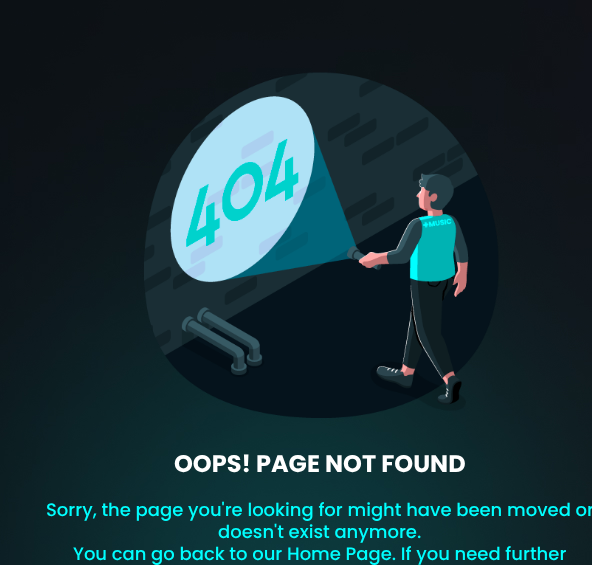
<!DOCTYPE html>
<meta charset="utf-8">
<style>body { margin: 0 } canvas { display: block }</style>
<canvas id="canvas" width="592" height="565"></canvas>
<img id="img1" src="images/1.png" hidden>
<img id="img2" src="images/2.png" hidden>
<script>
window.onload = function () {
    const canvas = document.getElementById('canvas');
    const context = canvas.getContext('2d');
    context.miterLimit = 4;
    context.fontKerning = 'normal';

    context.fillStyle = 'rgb(255, 255, 255)';
    context.fillRect(0, 0, 592, 565);
    context.drawImage(document.getElementById('img1'), 0, 0, 592, 565);
    context.drawImage(document.getElementById('img2'), 144, 72, 355, 346);
    context.font = 'bold 24px Poppins';
    context.fillText('OOPS! PAGE NOT FOUND', 174, 472);
    context.font = '500 18px Poppins';
    context.fillStyle = 'rgb(0, 255, 255)';
    context.fillText('Sorry, the page you\'re looking for might have been moved or', 46, 516);
    context.fillText('doesn\'t exist anymore.', 218, 538);
    context.fillText('You can go back to our Home Page. If you need further', 73, 560);
};
</script>
